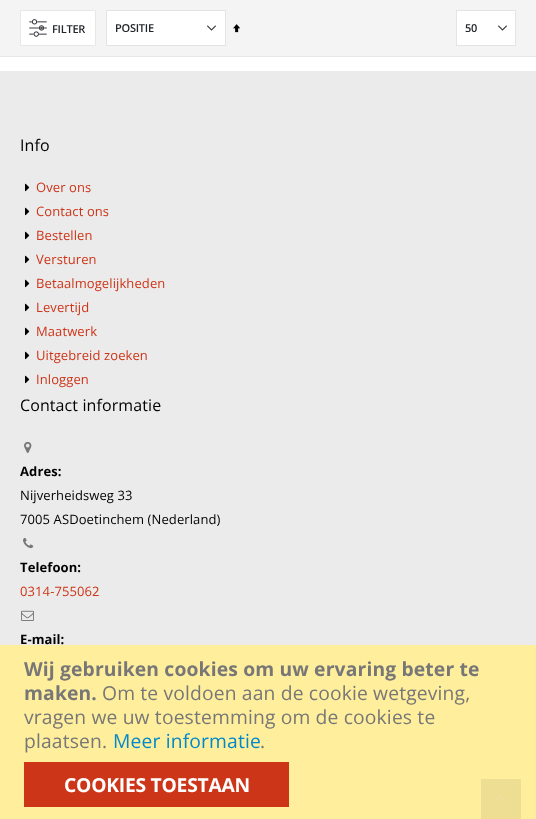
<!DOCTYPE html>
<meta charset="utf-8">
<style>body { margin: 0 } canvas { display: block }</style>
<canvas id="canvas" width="536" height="819"></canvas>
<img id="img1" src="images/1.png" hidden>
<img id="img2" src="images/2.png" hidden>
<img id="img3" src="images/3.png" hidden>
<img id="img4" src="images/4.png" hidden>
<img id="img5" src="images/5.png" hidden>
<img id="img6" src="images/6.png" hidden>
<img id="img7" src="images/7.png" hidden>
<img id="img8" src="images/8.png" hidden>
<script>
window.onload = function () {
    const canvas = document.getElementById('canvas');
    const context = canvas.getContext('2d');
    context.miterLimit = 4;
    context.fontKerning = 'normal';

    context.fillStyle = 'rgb(255, 255, 255)';
    context.fillRect(0, 0, 536, 819);
    context.fillStyle = 'rgb(244, 244, 244)';
    context.fillRect(0, 0, 536, 56);
    context.fillStyle = 'rgb(231, 231, 231)';
    context.fillRect(0, 56, 536, 1);
    context.fillStyle = 'rgb(255, 255, 255)';
    context.beginPath();
    context.rect(20.5, 10.5, 75, 35);
    context.fill();
    context.strokeStyle = 'rgb(231, 231, 231)';
    context.stroke();
    context.drawImage(document.getElementById('img1'), 29, 19, 18, 18);
    context.fillRect(107, 11, 118, 34);
    context.drawImage(document.getElementById('img2'), 207, 25, 9, 6);
    context.strokeStyle = 'rgb(228, 228, 228)';
    context.strokeRect(106.5, 10.5, 119, 35);
    context.drawImage(document.getElementById('img3'), 233, 24, 7, 9);
    context.fillRect(457, 11, 58, 34);
    context.drawImage(document.getElementById('img2'), 498, 25, 9, 6);
    context.strokeRect(456.5, 10.5, 59, 35);
    context.fillStyle = 'rgb(236, 235, 236)';
    context.fillRect(0, 71, 536, 574);
    context.drawImage(document.getElementById('img4'), 25, 183, 5, 9);
    context.drawImage(document.getElementById('img4'), 25, 207, 5, 9);
    context.drawImage(document.getElementById('img4'), 25, 231, 5, 9);
    context.drawImage(document.getElementById('img4'), 25, 255, 5, 9);
    context.drawImage(document.getElementById('img4'), 25, 279, 5, 9);
    context.drawImage(document.getElementById('img4'), 25, 303, 5, 9);
    context.drawImage(document.getElementById('img4'), 25, 327, 5, 9);
    context.drawImage(document.getElementById('img4'), 25, 351, 5, 9);
    context.drawImage(document.getElementById('img4'), 25, 375, 5, 9);
    context.drawImage(document.getElementById('img5'), 24, 441, 8, 12);
    context.drawImage(document.getElementById('img6'), 23, 537, 11, 12);
    context.drawImage(document.getElementById('img7'), 21, 610, 13, 11);
    context.fillStyle = 'rgb(255, 238, 156)';
    context.fillRect(0, 645, 536, 174);
    context.fillStyle = 'rgb(237, 222, 147)';
    context.fillRect(481, 779, 40, 40);
    context.drawImage(document.getElementById('img8'), 496, 796, 9, 5);
    context.fillStyle = 'rgb(204, 53, 23)';
    context.fillRect(24, 762, 265, 45);
    context.letterSpacing = '-0.25px';
    context.font = '600 11px Open Sans';
    context.fillStyle = 'rgb(34, 37, 41)';
    context.fillText('FILTER', 52, 33);
    context.fillText('POSITIE', 115, 32);
    context.fillText('50', 465, 32);
    context.letterSpacing = '0.1px';
    context.font = '16px Open Sans';
    context.fillStyle = 'rgb(0, 0, 0)';
    context.fillText('Info', 20, 151);
    context.font = '13px Open Sans';
    context.fillStyle = 'rgb(204, 53, 23)';
    context.fillText('Over ons', 36, 192);
    context.fillText('Contact ons', 36, 216);
    context.fillText('Bestellen', 36, 240);
    context.fillText('Versturen', 36, 264);
    context.fillText('Betaalmogelijkheden', 36, 288);
    context.fillText('Levertijd', 36, 312);
    context.fillText('Maatwerk', 36, 336);
    context.fillText('Uitgebreid zoeken', 36, 360);
    context.fillText('Inloggen', 36, 384);
    context.font = '16px Open Sans';
    context.fillStyle = 'rgb(0, 0, 0)';
    context.fillText('Contact informatie', 20, 411);
    context.font = 'bold 13px Open Sans';
    context.fillText('Adres:', 20, 476);
    context.font = '13px Open Sans';
    context.fillText('Nijverheidsweg 33', 20, 500);
    context.fillText('7005 ASDoetinchem (Nederland)', 20, 524);
    context.font = 'bold 13px Open Sans';
    context.fillText('Telefoon:', 20, 572);
    context.font = '13px Open Sans';
    context.fillStyle = 'rgb(204, 53, 23)';
    context.fillText('0314-755062', 20, 596);
    context.font = 'bold 13px Open Sans';
    context.fillStyle = 'rgb(0, 0, 0)';
    context.fillText('E-mail:', 20, 644);
    context.letterSpacing = '0.15px';
    context.font = 'bold 19.3px Open Sans';
    context.fillStyle = 'rgb(119, 119, 119)';
    context.fillText('Wij gebruiken cookies om uw ervaring beter te', 24, 676);
    context.fillText('maken.', 24, 700);
    context.font = '19.3px Open Sans';
    context.fillText('Om te voldoen aan de cookie wetgeving,', 102, 700);
    context.fillText('vragen we uw toestemming om de cookies te', 24, 724);
    context.fillText('plaatsen.', 24, 748);
    context.fillStyle = 'rgb(0, 136, 204)';
    context.fillText('Meer informatie', 113, 748);
    context.fillStyle = 'rgb(119, 119, 119)';
    context.fillText('.', 260, 748);
    context.letterSpacing = '-0.25px';
    context.font = 'bold 19.3px Open Sans';
    context.fillStyle = 'rgb(255, 255, 255)';
    context.fillText('COOKIES TOESTAAN', 64, 792);
};
</script>
